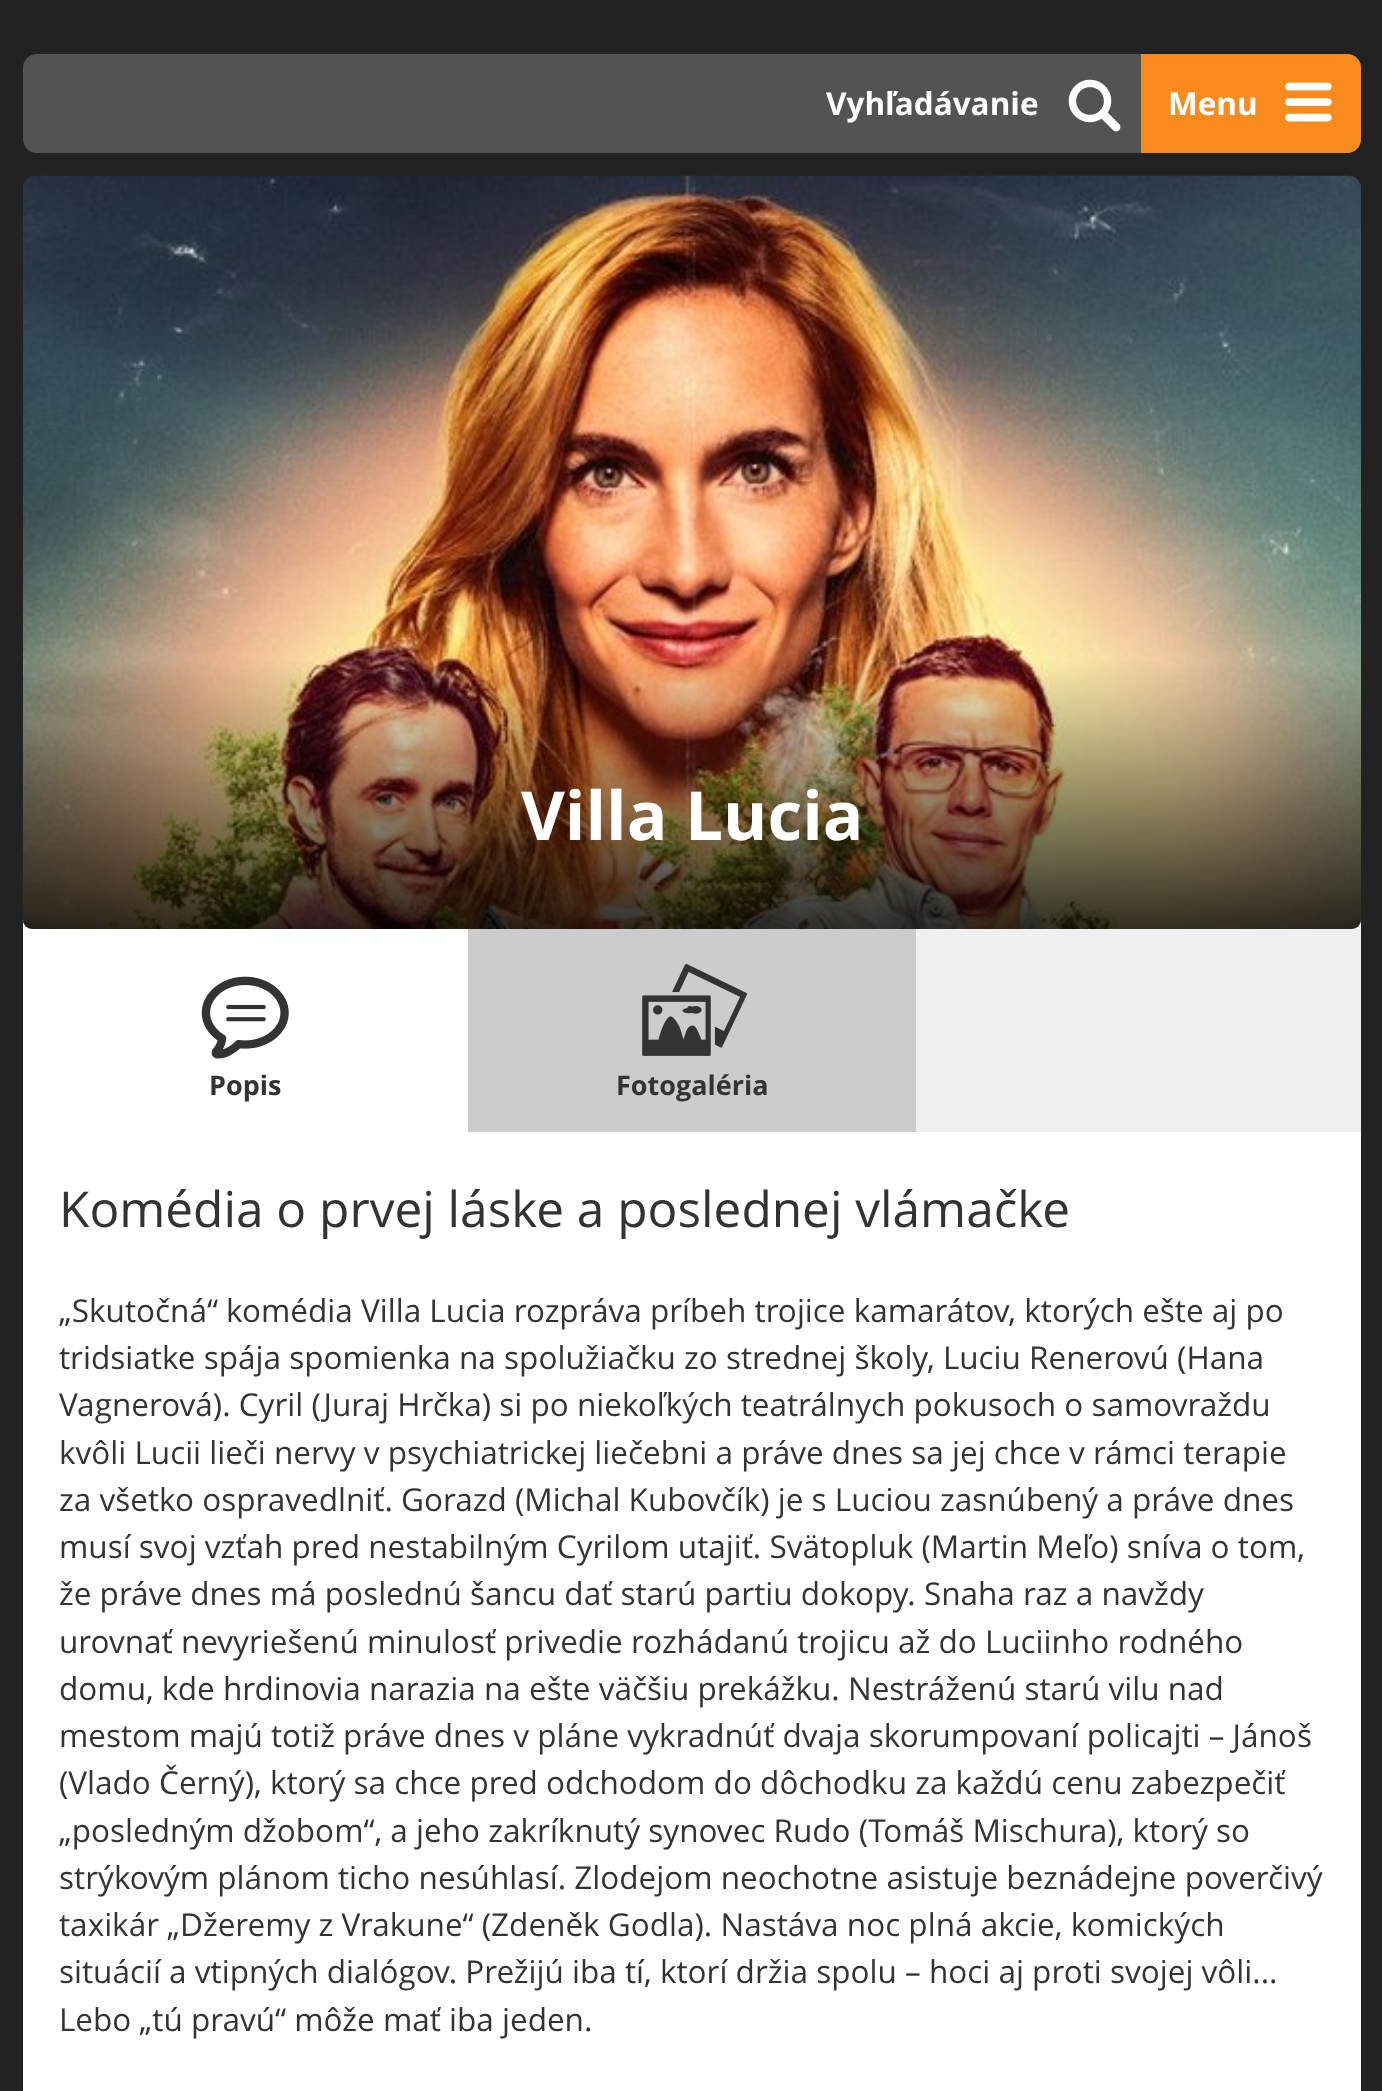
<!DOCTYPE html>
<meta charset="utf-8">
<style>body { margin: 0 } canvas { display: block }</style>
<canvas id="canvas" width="1382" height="2091"></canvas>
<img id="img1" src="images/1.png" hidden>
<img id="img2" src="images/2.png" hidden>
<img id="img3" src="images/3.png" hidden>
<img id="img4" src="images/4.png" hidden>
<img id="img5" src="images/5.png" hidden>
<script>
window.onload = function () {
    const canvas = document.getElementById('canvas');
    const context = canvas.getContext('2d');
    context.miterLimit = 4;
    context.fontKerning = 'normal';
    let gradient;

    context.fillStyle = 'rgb(34, 34, 34)';
    context.fillRect(0, 0, 1382, 2091);
    context.fillStyle = 'rgb(83, 83, 83)';
    context.beginPath();
    context.roundRect(23, 54, 1338, 99, 14);
    context.fill();
    context.drawImage(document.getElementById('img1'), 1068, 79, 53, 53);
    context.fillStyle = 'rgb(248, 138, 30)';
    context.beginPath();
    context.roundRect(1141, 54, 220, 99, [0, 14, 14, 0]);
    context.fill();
    context.drawImage(document.getElementById('img2'), 1285, 82, 47, 40);
    context.fillStyle = 'rgb(255, 255, 255)';
    context.beginPath();
    context.roundRect(23, 176, 1338, 753, [14, 14, 0, 0]);
    context.fill();
    context.drawImage(document.getElementById('img3'), 22, 175, 1339, 754);
    gradient = context.createLinearGradient(692, 659, 692, 929);
    gradient.addColorStop(0, 'rgba(0, 0, 0, 0)');
    gradient.addColorStop(1, 'rgba(0, 0, 0, 0.8)');
    context.fillStyle = gradient;
    context.beginPath();
    context.roundRect(23, 659, 1338, 270, [0, 0, 9, 9]);
    context.fill();
    context.fillStyle = 'rgb(255, 255, 255)';
    context.fillRect(23, 1132, 1338, 959);
    context.fillStyle = 'rgb(239, 239, 239)';
    context.fillRect(916, 929, 445, 203);
    context.fillStyle = 'rgb(255, 255, 255)';
    context.fillRect(23, 929, 445, 203);
    context.drawImage(document.getElementById('img4'), 201, 976, 88, 83);
    context.fillStyle = 'rgb(204, 204, 204)';
    context.fillRect(468, 929, 448, 203);
    context.drawImage(document.getElementById('img5'), 642, 963, 105, 93);
    context.font = 'bold 31.5px Open Sans';
    context.fillStyle = 'rgb(255, 255, 255)';
    context.fillText('Vyhľadávanie', 826, 115);
    context.fillText('Menu', 1168, 115);
    context.font = 'bold 67.5px Open Sans';
    context.fillText('Villa Lucia', 521, 840);
    context.font = 'bold 27px Open Sans';
    context.fillStyle = 'rgb(51, 51, 51)';
    context.fillText('Popis', 209, 1095);
    context.fillText('Fotogaléria', 616, 1095);
    context.font = '49.5px Open Sans';
    context.fillText('Komédia o prvej láske a poslednej vlámačke', 59, 1227);
    context.font = '31.5px Open Sans';
    context.fillText('„Skutočná“ komédia Villa Lucia rozpráva príbeh trojice kamarátov, ktorých ešte aj po', 59, 1322);
    context.fillText('tridsiatke spája spomienka na spolužiačku zo strednej školy, Luciu Renerovú (Hana', 59, 1369);
    context.fillText('Vagnerová). Cyril (Juraj Hrčka) si po niekoľkých teatrálnych pokusoch o samovraždu', 59, 1416);
    context.fillText('kvôli Lucii lieči nervy v psychiatrickej liečebni a práve dnes sa jej chce v rámci terapie', 59, 1464);
    context.fillText('za všetko ospravedlniť. Gorazd (Michal Kubovčík) je s Luciou zasnúbený a práve dnes', 59, 1511);
    context.fillText('musí svoj vzťah pred nestabilným Cyrilom utajiť. Svätopluk (Martin Meľo) sníva o tom,', 59, 1558);
    context.fillText('že práve dnes má poslednú šancu dať starú partiu dokopy. Snaha raz a navždy', 59, 1605);
    context.fillText('urovnať nevyriešenú minulosť privedie rozhádanú trojicu až do Luciinho rodného', 59, 1653);
    context.fillText('domu, kde hrdinovia narazia na ešte väčšiu prekážku. Nestráženú starú vilu nad', 59, 1700);
    context.fillText('mestom majú totiž práve dnes v pláne vykradnúť dvaja skorumpovaní policajti – Jánoš', 59, 1747);
    context.fillText('(Vlado Černý), ktorý sa chce pred odchodom do dôchodku za každú cenu zabezpečiť', 59, 1794);
    context.fillText('„posledným džobom“, a jeho zakríknutý synovec Rudo (Tomáš Mischura), ktorý so', 59, 1842);
    context.fillText('strýkovým plánom ticho nesúhlasí. Zlodejom neochotne asistuje beznádejne poverčivý', 59, 1889);
    context.fillText('taxikár „Džeremy z Vrakune“ (Zdeněk Godla). Nastáva noc plná akcie, komických', 59, 1936);
    context.fillText('situácií a vtipných dialógov. Prežijú iba tí, ktorí držia spolu – hoci aj proti svojej vôli...', 59, 1983);
    context.fillText('Lebo „tú pravú“ môže mať iba jeden.', 59, 2031);
};
</script>
